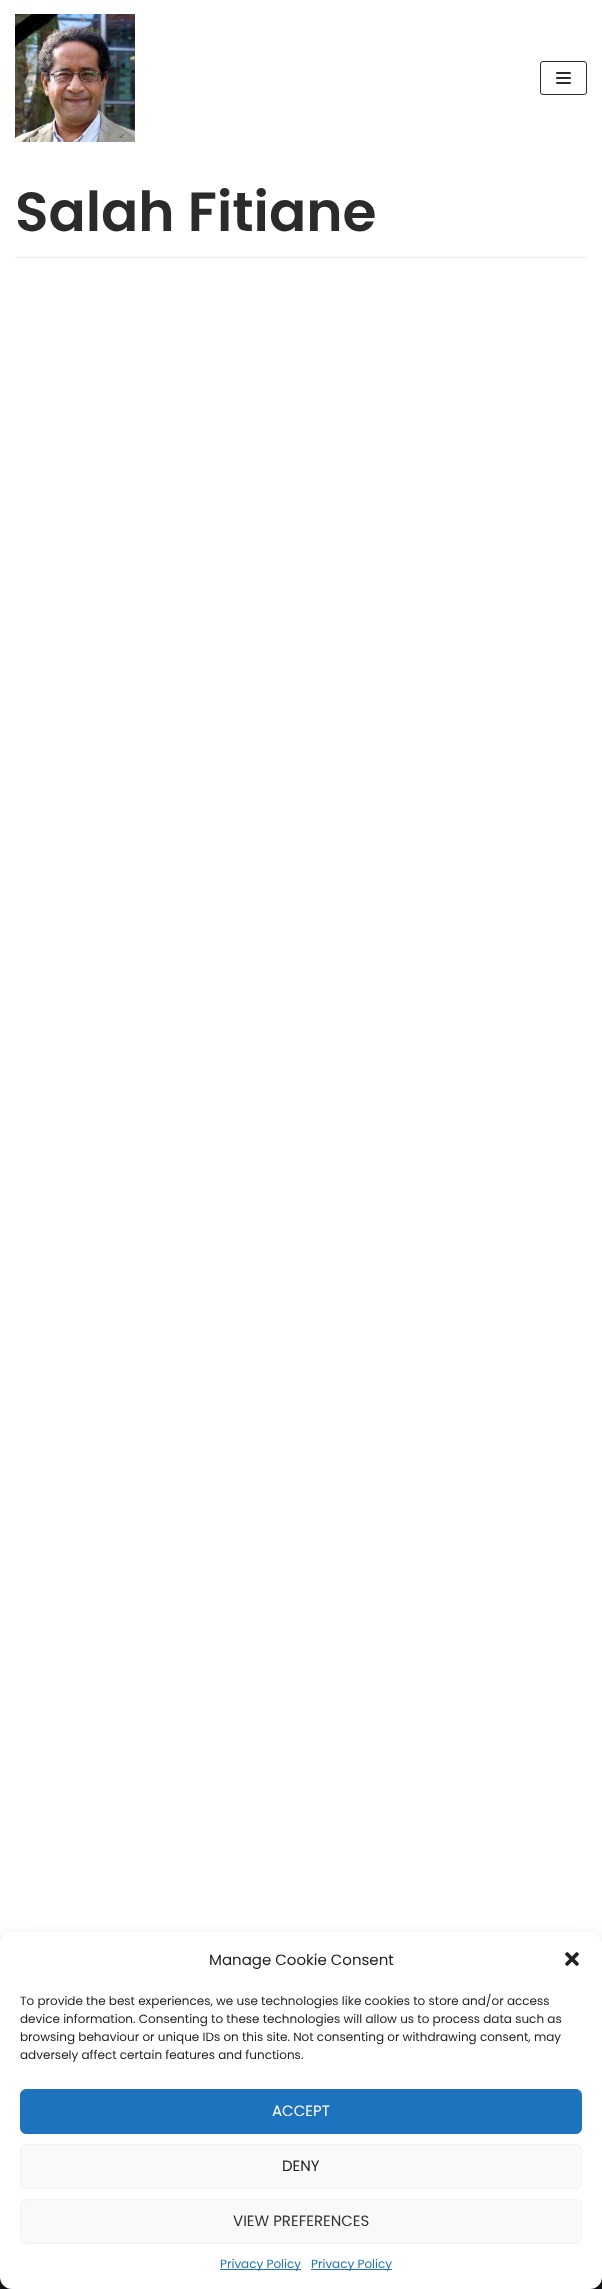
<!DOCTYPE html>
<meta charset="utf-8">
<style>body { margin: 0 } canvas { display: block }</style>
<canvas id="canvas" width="602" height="2289"></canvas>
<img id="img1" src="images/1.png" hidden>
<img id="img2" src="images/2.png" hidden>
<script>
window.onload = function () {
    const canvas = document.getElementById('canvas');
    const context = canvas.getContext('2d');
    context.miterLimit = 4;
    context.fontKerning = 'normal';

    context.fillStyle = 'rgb(255, 255, 255)';
    context.fillRect(0, 0, 602, 2289);
    context.drawImage(document.getElementById('img1'), 15, 14, 120, 128);
    context.beginPath();
    context.roundRect(540.5, 61.5, 46, 33, 2.5);
    context.strokeStyle = 'rgb(43, 43, 43)';
    context.stroke();
    context.fillStyle = 'rgb(43, 43, 43)';
    context.beginPath();
    context.roundRect(556, 72, 15, 2, 1);
    context.fill();
    context.beginPath();
    context.roundRect(556, 77, 15, 2, 1);
    context.fill();
    context.beginPath();
    context.roundRect(556, 82, 15, 2, 1);
    context.fill();
    context.fillStyle = 'rgb(237, 237, 237)';
    context.fillRect(15, 257, 572, 1);
    context.fillStyle = 'rgb(24, 25, 29)';
    context.fillRect(0, 2277, 602, 12);
    context.fillStyle = 'rgba(0, 0, 0, 0.23)';
    context.filter = 'blur(3px)';
    context.beginPath();
    context.roundRect(0, 1938, 602, 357, 12);
    context.fill();
    context.filter = 'none';
    context.fillStyle = 'rgba(0, 0, 0, 0.19)';
    context.filter = 'blur(10px)';
    context.beginPath();
    context.roundRect(0, 1942, 602, 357, 12);
    context.fill();
    context.filter = 'none';
    context.fillStyle = 'rgb(255, 255, 255)';
    context.beginPath();
    context.roundRect(0, 1932, 602, 357, 12);
    context.fill();
    context.drawImage(document.getElementById('img2'), 565, 1952, 14, 14);
    context.fillStyle = 'rgb(30, 115, 190)';
    context.beginPath();
    context.roundRect(20.5, 2089.5, 561, 44, 5.5);
    context.fill();
    context.strokeStyle = 'rgb(30, 115, 190)';
    context.stroke();
    context.fillStyle = 'rgb(249, 249, 249)';
    context.beginPath();
    context.roundRect(20.5, 2144.5, 561, 44, 5.5);
    context.fill();
    context.strokeStyle = 'rgb(242, 242, 242)';
    context.stroke();
    context.beginPath();
    context.roundRect(20.5, 2199.5, 561, 44, 5.5);
    context.fill();
    context.stroke();
    context.fillStyle = 'rgb(30, 115, 190)';
    context.fillRect(220, 2269, 81, 1);
    context.fillRect(311, 2269, 81, 1);
    context.font = '600 55px Poppins';
    context.fillStyle = 'rgb(43, 43, 43)';
    context.fillText('Salah Fitiane', 15, 231);
    context.font = '15px Poppins';
    context.fillStyle = 'rgb(34, 34, 34)';
    context.fillText('Manage Cookie Consent', 209, 1965);
    context.font = '12px Poppins';
    context.fillText('To provide the best experiences, we use technologies like cookies to store and/or access', 20, 2005);
    context.fillText('device information. Consenting to these technologies will allow us to process data such as', 20, 2023);
    context.fillText('browsing behaviour or unique IDs on this site. Not consenting or withdrawing consent, may', 20, 2041);
    context.fillText('adversely affect certain features and functions.', 20, 2059);
    context.font = '15px Poppins';
    context.fillStyle = 'rgb(255, 255, 255)';
    context.fillText('ACCEPT', 272, 2116);
    context.fillStyle = 'rgb(34, 34, 34)';
    context.fillText('DENY', 282, 2171);
    context.fillStyle = 'rgb(51, 51, 51)';
    context.fillText('VIEW PREFERENCES', 233, 2226);
    context.font = '12px Poppins';
    context.fillStyle = 'rgb(30, 115, 190)';
    context.fillText('Privacy Policy', 220, 2268);
    context.fillText('Privacy Policy', 311, 2268);
};
</script>
